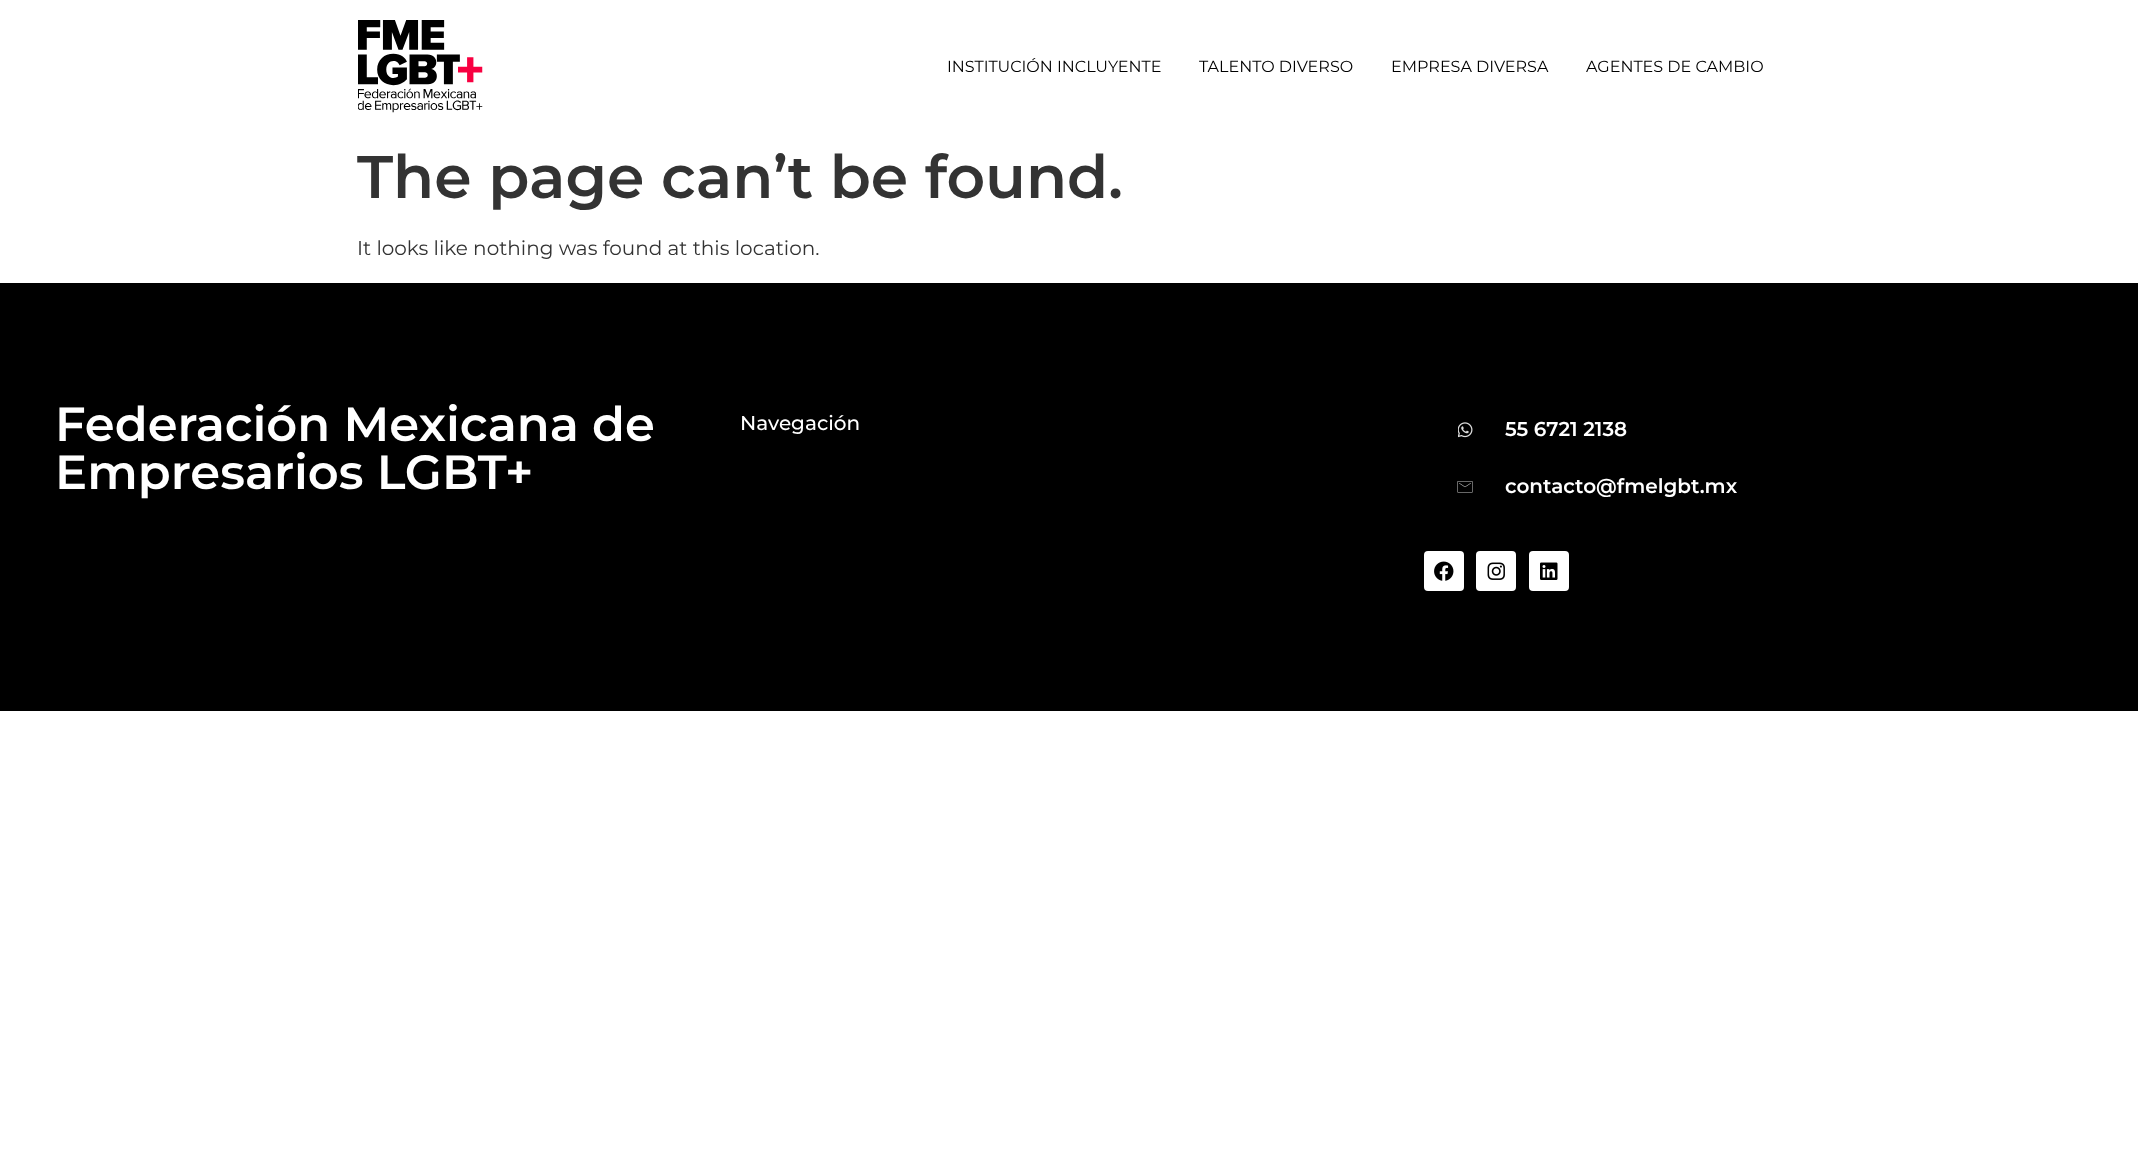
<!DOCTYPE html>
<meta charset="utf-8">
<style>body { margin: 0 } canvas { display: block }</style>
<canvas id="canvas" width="2138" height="1158"></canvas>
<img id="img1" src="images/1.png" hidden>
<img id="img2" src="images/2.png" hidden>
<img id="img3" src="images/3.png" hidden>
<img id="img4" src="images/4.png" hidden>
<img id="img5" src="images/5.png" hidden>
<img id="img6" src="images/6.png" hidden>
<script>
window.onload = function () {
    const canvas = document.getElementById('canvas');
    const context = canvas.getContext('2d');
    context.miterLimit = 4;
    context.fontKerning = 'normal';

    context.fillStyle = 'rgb(255, 255, 255)';
    context.fillRect(0, 0, 2138, 1158);
    context.drawImage(document.getElementById('img1'), 358, 20, 125, 93);
    context.fillStyle = 'rgb(0, 0, 0)';
    context.fillRect(0, 283, 2138, 428);
    context.drawImage(document.getElementById('img2'), 1458, 422, 15, 16);
    context.drawImage(document.getElementById('img3'), 1457, 481, 16, 12);
    context.fillStyle = 'rgb(255, 255, 255)';
    context.beginPath();
    context.roundRect(1424, 551, 40, 40, 4);
    context.fill();
    context.drawImage(document.getElementById('img4'), 1434, 561, 20, 20);
    context.beginPath();
    context.roundRect(1476, 551, 40, 40, 4);
    context.fill();
    context.drawImage(document.getElementById('img5'), 1487, 562, 18, 18);
    context.beginPath();
    context.roundRect(1529, 551, 40, 40, 4);
    context.fill();
    context.drawImage(document.getElementById('img6'), 1540, 562, 18, 18);
    context.font = '16px Montserrat';
    context.fillStyle = 'rgb(0, 0, 0)';
    context.fillText('INSTITUCIÓN INCLUYENTE', 947, 72);
    context.fillText('TALENTO DIVERSO', 1199, 72);
    context.fillText('EMPRESA DIVERSA', 1391, 72);
    context.fillText('AGENTES DE CAMBIO', 1586, 72);
    context.font = '600 60px Montserrat';
    context.fillStyle = 'rgb(51, 51, 51)';
    context.fillText('The page can’t be found.', 357, 198);
    context.font = '20px Montserrat';
    context.fillText('It looks like nothing was found at this location.', 357, 255);
    context.font = '600 48px Montserrat';
    context.fillStyle = 'rgb(255, 255, 255)';
    context.fillText('Federación Mexicana de', 55, 441);
    context.fillText('Empresarios LGBT+', 55, 489);
    context.font = '500 20px Montserrat';
    context.fillText('Navegación', 740, 430);
    context.font = '600 20px Montserrat';
    context.fillText('55 6721 2138', 1505, 436);
    context.fillText('contacto@fmelgbt.mx', 1505, 493);
};
</script>
